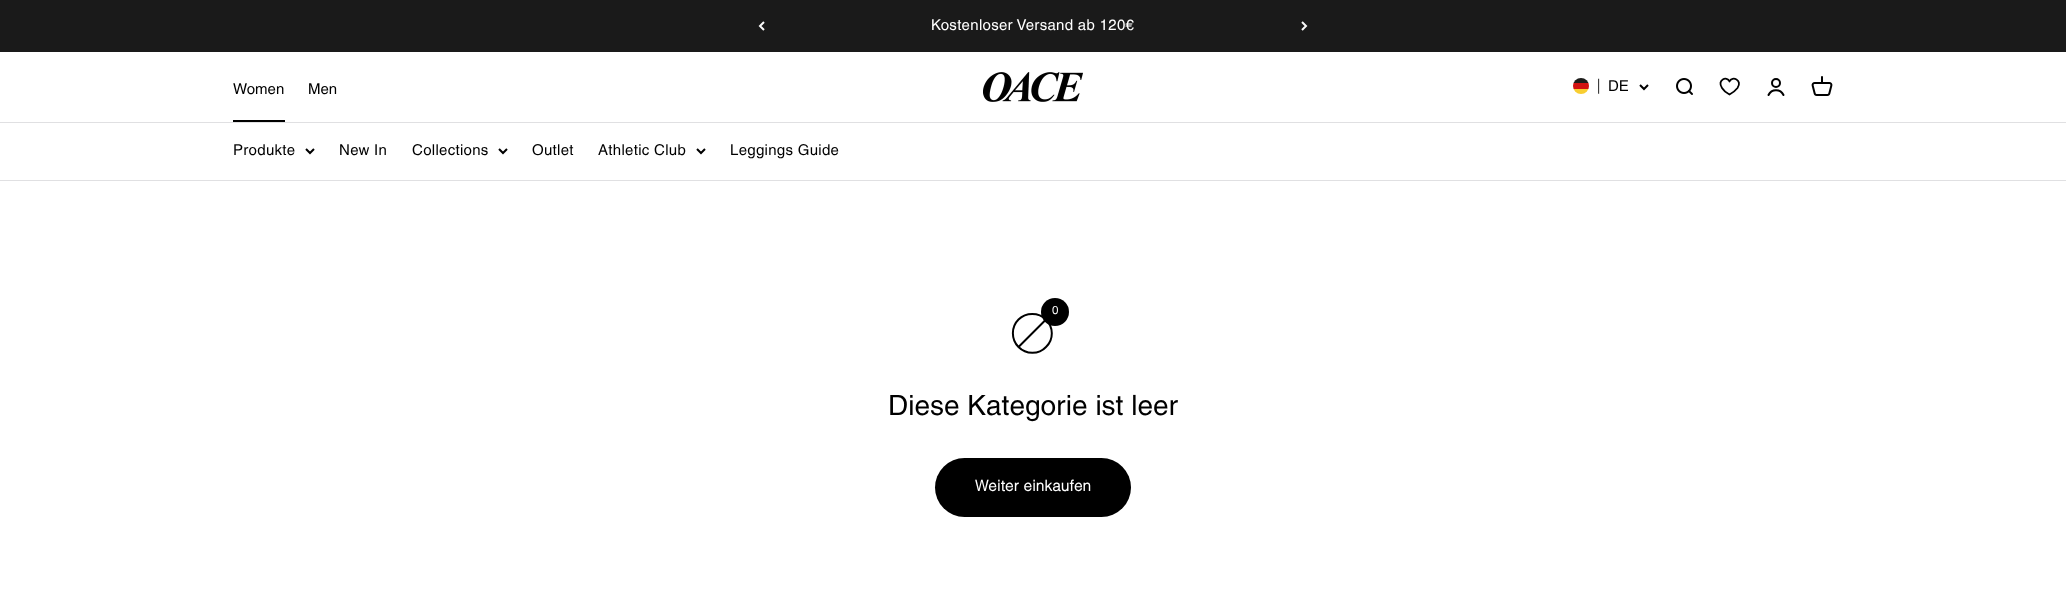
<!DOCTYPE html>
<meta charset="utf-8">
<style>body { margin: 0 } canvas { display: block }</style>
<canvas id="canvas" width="2066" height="603"></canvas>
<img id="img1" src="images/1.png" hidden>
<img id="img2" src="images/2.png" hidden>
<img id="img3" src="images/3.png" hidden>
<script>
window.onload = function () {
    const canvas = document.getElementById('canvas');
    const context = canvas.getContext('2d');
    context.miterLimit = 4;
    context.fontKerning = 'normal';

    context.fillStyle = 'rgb(255, 255, 255)';
    context.fillRect(0, 0, 2066, 603);
    context.fillStyle = 'rgb(26, 26, 26)';
    context.fillRect(0, 0, 2066, 52);
    context.beginPath();
    context.moveTo(764, 22);
    context.lineTo(760, 26);
    context.lineTo(764, 30);
    context.strokeStyle = 'rgb(250, 250, 250)';
    context.lineWidth = 2;
    context.stroke();
    context.beginPath();
    context.moveTo(1302, 30);
    context.lineTo(1306, 26);
    context.lineTo(1302, 22);
    context.stroke();
    context.fillStyle = 'rgb(0, 0, 0)';
    context.fillRect(233, 120, 52, 2);
    context.fillStyle = 'rgb(224, 224, 226)';
    context.fillRect(0, 122, 2066, 1);
    context.fillRect(0, 180, 2066, 1);
    context.beginPath();
    context.moveTo(306, 149);
    context.lineTo(310, 153);
    context.lineTo(314, 149);
    context.strokeStyle = 'rgb(0, 0, 0)';
    context.stroke();
    context.beginPath();
    context.moveTo(499, 149);
    context.lineTo(503, 153);
    context.lineTo(507, 149);
    context.stroke();
    context.beginPath();
    context.moveTo(697, 149);
    context.lineTo(701, 153);
    context.lineTo(705, 149);
    context.stroke();
    context.drawImage(document.getElementById('img1'), 983, 72, 100, 30);
    context.save();
    context.beginPath();
    context.roundRect(1573, 78, 16, 16, 8);
    context.clip();
    context.fillStyle = 'rgb(29, 29, 27)';
    context.fillRect(1573, 78, 16, 5);
    context.fillStyle = 'rgb(210, 18, 17)';
    context.fillRect(1573, 83, 16, 6);
    context.fillStyle = 'rgb(248, 206, 49)';
    context.fillRect(1573, 89, 16, 5);
    context.restore();
    context.beginPath();
    context.moveTo(1640, 85);
    context.lineTo(1644, 89);
    context.lineTo(1648, 85);
    context.stroke();
    context.drawImage(document.getElementById('img2'), 1676, 78, 17, 17);
    context.beginPath();
    context.moveTo(1729.5, 94.5);
    context.bezierCurveTo(1726.5, 93, 1723.5, 90.5, 1722, 88);
    context.bezierCurveTo(1716.5, 80, 1727, 75.5, 1729.5, 81.5);
    context.bezierCurveTo(1732, 75.5, 1743, 80, 1737.5, 88);
    context.bezierCurveTo(1735.5, 90.5, 1732.5, 93, 1729.5, 94.5);
    context.closePath();
    context.lineWidth = 1.8;
    context.lineCap = 'round';
    context.lineJoin = 'round';
    context.stroke();
    context.beginPath();
    context.arc(1776, 83, 4, 0, 2 * Math.PI);
    context.lineWidth = 2;
    context.stroke();
    context.beginPath();
    context.moveTo(1768.5, 95);
    context.bezierCurveTo(1771.5, 88.5, 1780.5, 88.5, 1783.5, 95);
    context.lineJoin = 'miter';
    context.stroke();
    context.drawImage(document.getElementById('img3'), 1811, 76, 22, 20);
    context.beginPath();
    context.moveTo(1046, 319.5);
    context.bezierCurveTo(1038.5, 312, 1026, 312, 1018.5, 319.5);
    context.bezierCurveTo(1011, 327, 1011, 339.5, 1018.5, 347);
    context.moveTo(1046, 319.5);
    context.bezierCurveTo(1053.5, 327, 1054, 339.5, 1046, 347);
    context.bezierCurveTo(1038.5, 355, 1026, 354.5, 1018.5, 347);
    context.moveTo(1046, 319.5);
    context.lineTo(1018.5, 347);
    context.lineCap = 'butt';
    context.stroke();
    context.fillStyle = 'rgb(0, 0, 0)';
    context.beginPath();
    context.arc(1055, 312, 14, 0, 2 * Math.PI);
    context.fill();
    context.beginPath();
    context.roundRect(935, 458, 196, 59, 29.5);
    context.fill();
    context.letterSpacing = '0.3px';
    context.font = '15px Helvetica';
    context.fillStyle = 'rgb(255, 255, 255)';
    context.fillText('Kostenloser Versand ab 120€', 931, 30);
    context.letterSpacing = '0px';
    context.fillStyle = 'rgb(0, 0, 0)';
    context.fillText('Women', 233, 94);
    context.fillText('Men', 308, 94);
    context.letterSpacing = '0.3px';
    context.fillText('Produkte', 233, 155);
    context.fillText('New In', 339, 155);
    context.fillText('Collections', 412, 155);
    context.fillText('Outlet', 532, 155);
    context.fillText('Athletic Club', 598, 155);
    context.fillText('Leggings Guide', 730, 155);
    context.letterSpacing = '0px';
    context.font = '300 15px Helvetica';
    context.fillText('|', 1597, 90);
    context.font = '15px Helvetica';
    context.fillText('DE', 1608, 91);
    context.letterSpacing = '0.3px';
    context.font = 'bold 11px Helvetica';
    context.fillStyle = 'rgb(255, 255, 255)';
    context.fillText('0', 1052, 314);
    context.letterSpacing = '0px';
    context.font = '28px Helvetica';
    context.fillStyle = 'rgb(0, 0, 0)';
    context.fillText('Diese Kategorie ist leer', 888, 415);
    context.letterSpacing = '0.3px';
    context.font = 'bold 15px Helvetica';
    context.fillStyle = 'rgb(255, 255, 255)';
    context.fillText('Weiter einkaufen', 975, 491);
};
</script>
